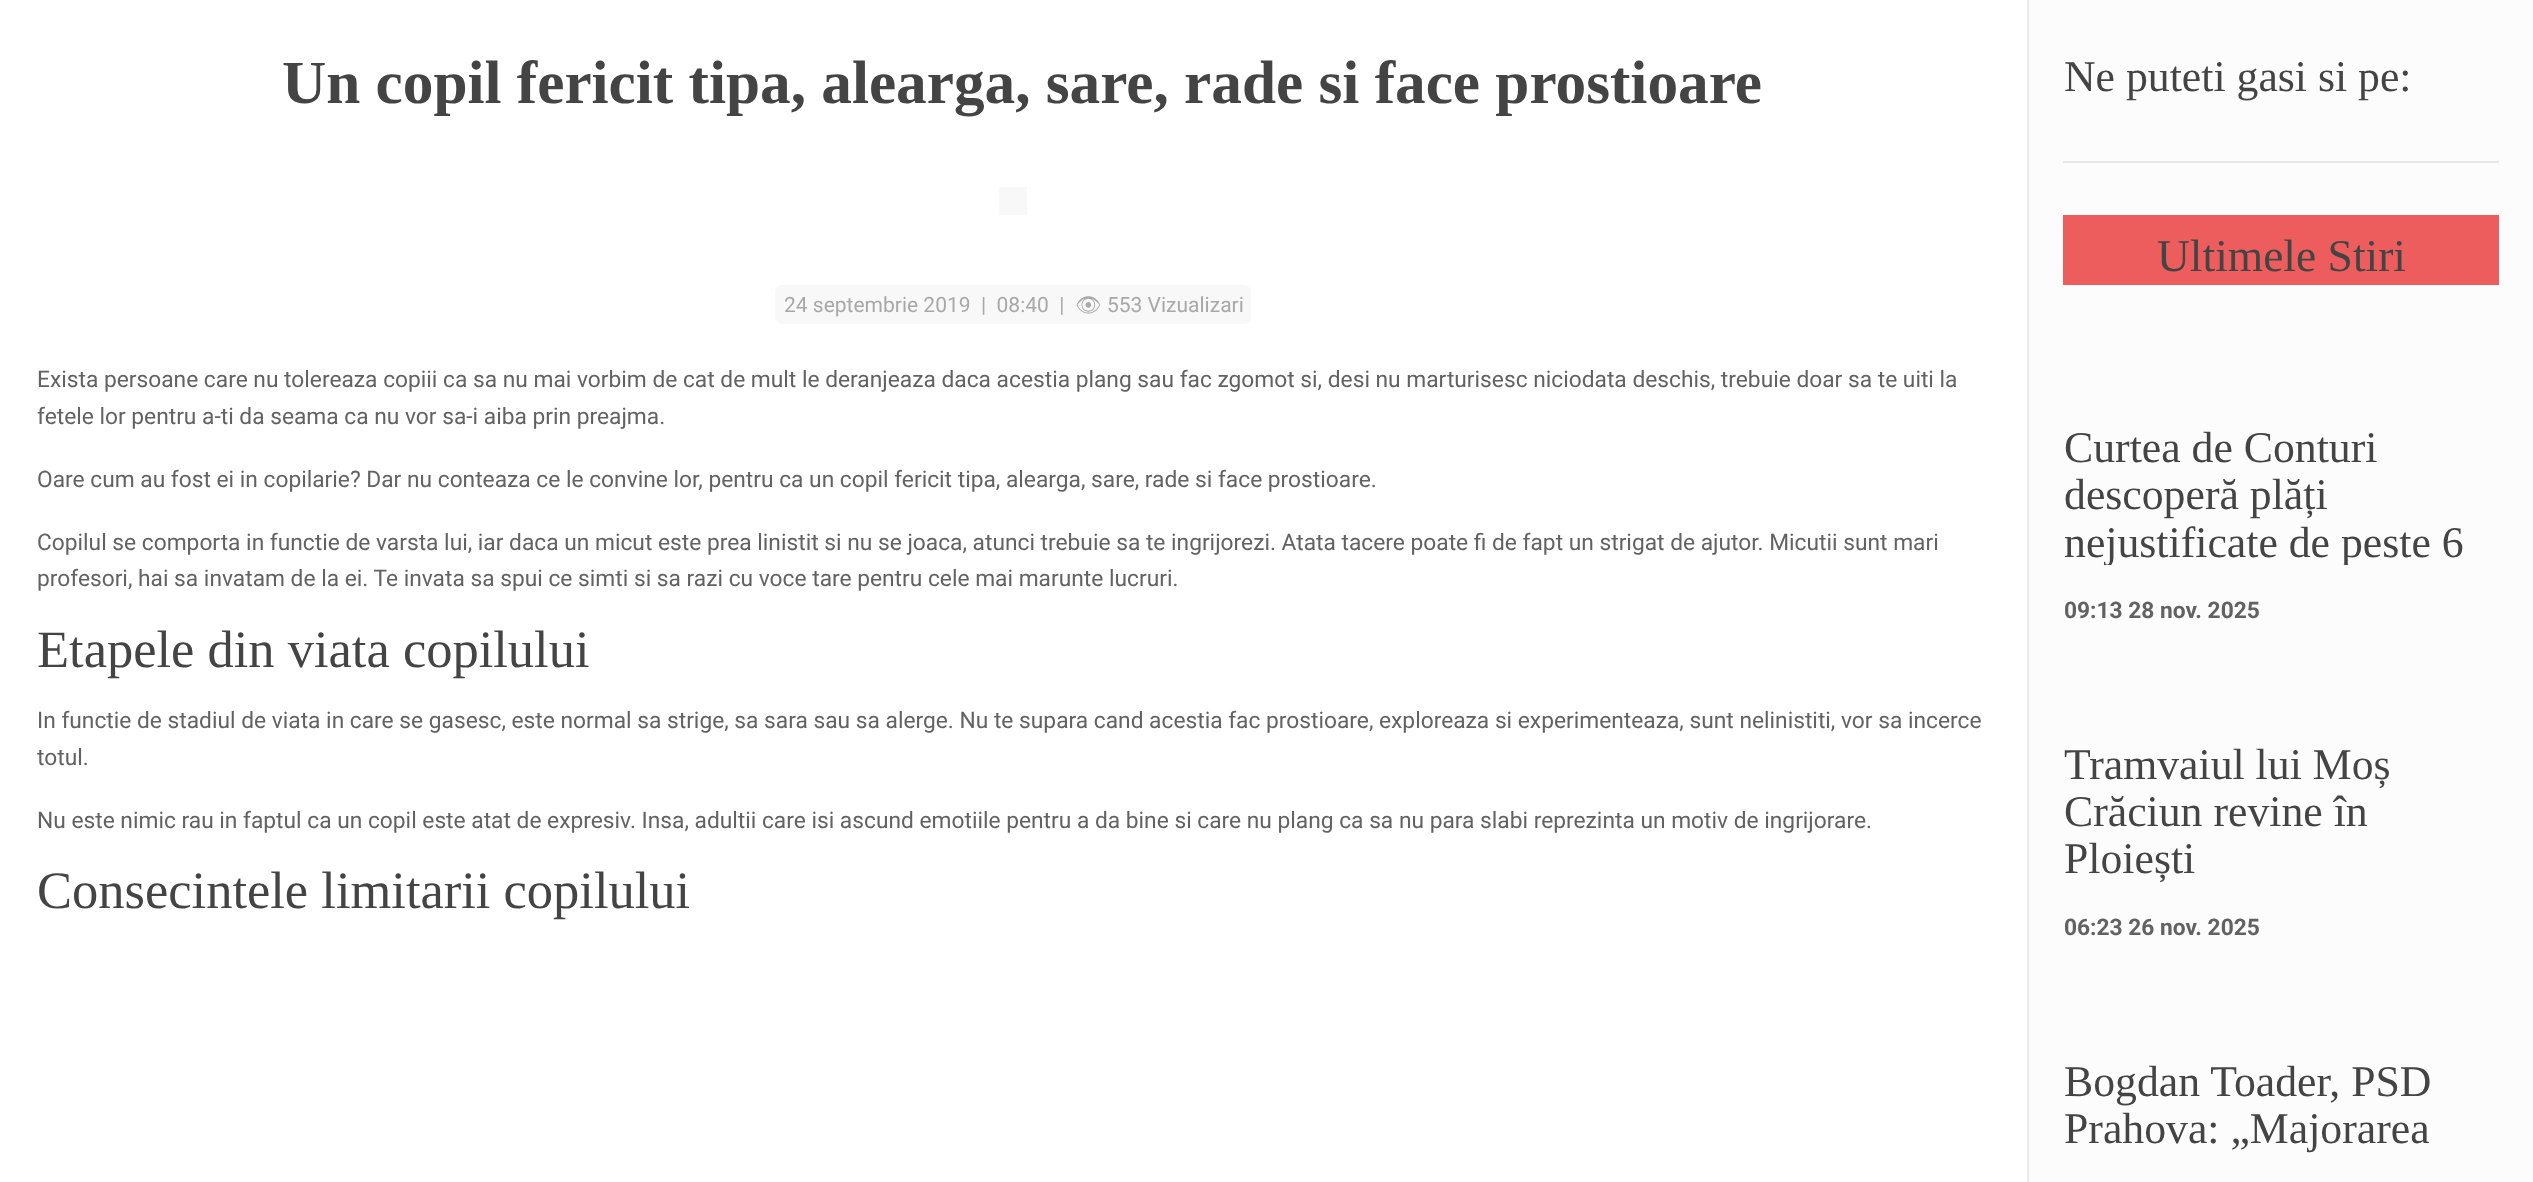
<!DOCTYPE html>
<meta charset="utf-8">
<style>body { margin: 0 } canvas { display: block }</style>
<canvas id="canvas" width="2533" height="1182"></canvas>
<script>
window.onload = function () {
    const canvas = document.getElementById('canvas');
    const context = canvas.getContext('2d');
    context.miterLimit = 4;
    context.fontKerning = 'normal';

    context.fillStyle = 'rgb(255, 255, 255)';
    context.fillRect(0, 0, 2533, 1182);
    context.fillStyle = 'rgb(252, 252, 252)';
    context.fillRect(2029, 0, 504, 1182);
    context.fillStyle = 'rgb(248, 248, 248)';
    context.fillRect(999, 187, 28, 28);
    context.beginPath();
    context.roundRect(775, 285, 476, 39, 7);
    context.fill();
    context.fillStyle = 'rgb(235, 235, 235)';
    context.fillRect(2027, 0, 1, 1182);
    context.fillStyle = 'rgb(233, 233, 233)';
    context.fillRect(2028, 0, 1, 1182);
    context.fillStyle = 'rgb(232, 232, 232)';
    context.fillRect(2063, 161, 436, 2);
    context.fillStyle = 'rgb(238, 93, 93)';
    context.fillRect(2063, 215, 436, 70);
    context.font = 'bold 61.25px Liberation Serif';
    context.fillStyle = 'rgb(68, 68, 68)';
    context.fillText('Un copil fericit tipa, alearga, sare, rade si face prostioare', 282, 103);
    context.font = '21px Roboto';
    context.fillStyle = 'rgb(168, 168, 168)';
    context.fillText('24 septembrie 2019  |  08:40  |', 784, 312);
    context.font = '21px Noto Emoji';
    context.fillText('👁', 1075, 312);
    context.font = '21px Roboto';
    context.fillText('553 Vizualizari', 1107, 312);
    context.font = '22.75px Roboto';
    context.fillStyle = 'rgb(98, 98, 98)';
    context.fillText('Exista persoane care nu tolereaza copiii ca sa nu mai vorbim de cat de mult le deranjeaza daca acestia plang sau fac zgomot si, desi nu marturisesc niciodata deschis, trebuie doar sa te uiti la', 37, 387);
    context.fillText('fetele lor pentru a-ti da seama ca nu vor sa-i aiba prin preajma.', 37, 424);
    context.fillText('Oare cum au fost ei in copilarie? Dar nu conteaza ce le convine lor, pentru ca un copil fericit tipa, alearga, sare, rade si face prostioare.', 37, 487);
    context.fillText('Copilul se comporta in functie de varsta lui, iar daca un micut este prea linistit si nu se joaca, atunci trebuie sa te ingrijorezi. Atata tacere poate fi de fapt un strigat de ajutor. Micutii sunt mari', 37, 550);
    context.fillText('profesori, hai sa invatam de la ei. Te invata sa spui ce simti si sa razi cu voce tare pentru cele mai marunte lucruri.', 37, 586);
    context.font = '52.5px Liberation Serif';
    context.fillStyle = 'rgb(68, 68, 68)';
    context.fillText('Etapele din viata copilului', 37, 667);
    context.font = '22.75px Roboto';
    context.fillStyle = 'rgb(98, 98, 98)';
    context.fillText('In functie de stadiul de viata in care se gasesc, este normal sa strige, sa sara sau sa alerge. Nu te supara cand acestia fac prostioare, exploreaza si experimenteaza, sunt nelinistiti, vor sa incerce', 37, 728);
    context.fillText('totul.', 37, 765);
    context.fillText('Nu este nimic rau in faptul ca un copil este atat de expresiv. Insa, adultii care isi ascund emotiile pentru a da bine si care nu plang ca sa nu para slabi reprezinta un motiv de ingrijorare.', 37, 828);
    context.font = '52.5px Liberation Serif';
    context.fillStyle = 'rgb(68, 68, 68)';
    context.fillText('Consecintele limitarii copilului', 37, 908);
    context.font = '43.75px Liberation Serif';
    context.fillText('Ne puteti gasi si pe:', 2064, 91);
    context.font = '45.5px Liberation Serif';
    context.fillText('Ultimele Stiri', 2157, 271);
    context.font = '43.75px Liberation Serif';
    context.fillText('Curtea de Conturi', 2064, 462);
    context.fillText('descoperă plăți', 2064, 509);
    context.save();
    context.beginPath();
    context.rect(2063, 424, 436, 141);
    context.clip();
    context.fillText('nejustificate de peste 6', 2064, 557);
    context.restore();
    context.font = 'bold 22.75px Roboto';
    context.fillStyle = 'rgb(98, 98, 98)';
    context.fillText('09:13 28 nov. 2025', 2064, 618);
    context.font = '43.75px Liberation Serif';
    context.fillStyle = 'rgb(68, 68, 68)';
    context.fillText('Tramvaiul lui Moș', 2064, 779);
    context.fillText('Crăciun revine în', 2064, 826);
    context.fillText('Ploiești', 2064, 873);
    context.font = 'bold 22.75px Roboto';
    context.fillStyle = 'rgb(98, 98, 98)';
    context.fillText('06:23 26 nov. 2025', 2064, 935);
    context.font = '43.75px Liberation Serif';
    context.fillStyle = 'rgb(68, 68, 68)';
    context.fillText('Bogdan Toader, PSD', 2064, 1096);
    context.fillText('Prahova: „Majorarea', 2064, 1143);
};
</script>
